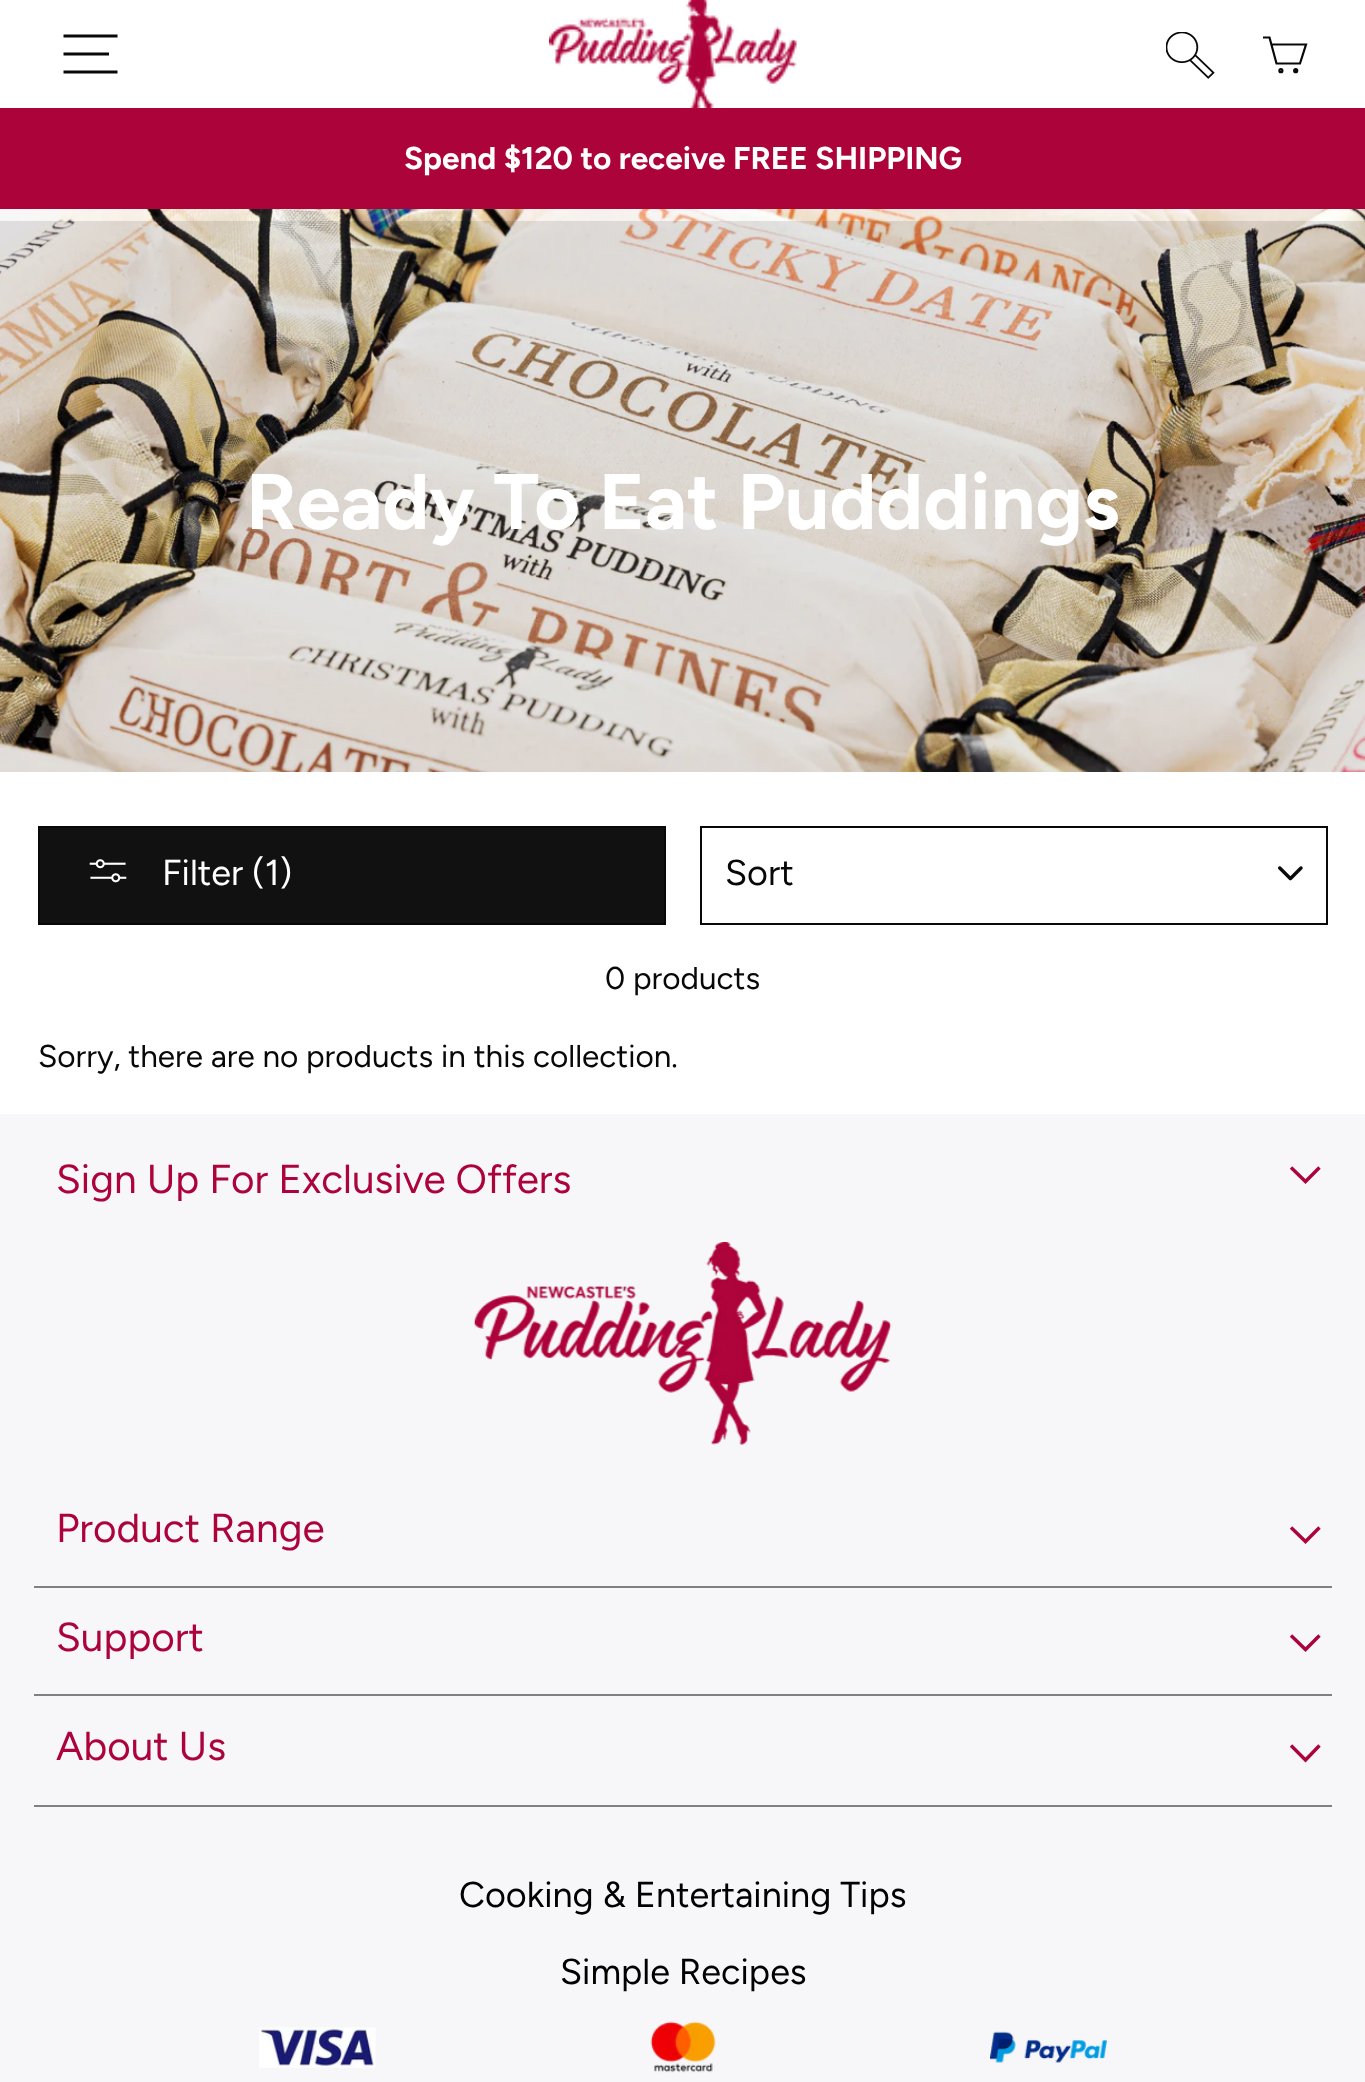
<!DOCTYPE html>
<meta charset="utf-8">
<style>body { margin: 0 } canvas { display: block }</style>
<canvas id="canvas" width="1365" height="2082"></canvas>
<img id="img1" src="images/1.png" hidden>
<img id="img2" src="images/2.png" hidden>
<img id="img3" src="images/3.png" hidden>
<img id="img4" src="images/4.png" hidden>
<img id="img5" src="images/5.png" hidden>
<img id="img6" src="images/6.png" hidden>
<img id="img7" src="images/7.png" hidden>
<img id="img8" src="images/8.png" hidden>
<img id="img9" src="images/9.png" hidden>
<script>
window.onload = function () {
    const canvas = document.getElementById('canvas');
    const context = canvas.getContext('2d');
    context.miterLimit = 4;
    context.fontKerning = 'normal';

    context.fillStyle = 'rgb(255, 255, 255)';
    context.fillRect(0, 0, 1365, 2082);
    context.beginPath();
    context.moveTo(63.5, 36);
    context.lineTo(117.5, 36);
    context.moveTo(63.5, 54);
    context.lineTo(109, 54);
    context.moveTo(63.5, 72);
    context.lineTo(117.5, 72);
    context.strokeStyle = 'rgb(8, 8, 8)';
    context.lineWidth = 3.2;
    context.stroke();
    context.drawImage(document.getElementById('img1'), 549, 0, 248, 108);
    context.drawImage(document.getElementById('img2'), 1166, 32, 49, 47);
    context.beginPath();
    context.moveTo(1271.5, 44.5);
    context.lineTo(1306, 44.5);
    context.lineTo(1300, 63.5);
    context.lineTo(1276.5, 63.5);
    context.lineTo(1269.5, 37.5);
    context.lineTo(1263, 37.5);
    context.lineWidth = 2.2;
    context.stroke();
    context.beginPath();
    context.arc(1280.9, 70.7, 1.5, 0, 2 * Math.PI);
    context.stroke();
    context.fillStyle = 'rgb(8, 8, 8)';
    context.beginPath();
    context.arc(1295.7, 70.7, 1.5, 0, 2 * Math.PI);
    context.fill();
    context.stroke();
    context.fillStyle = 'rgb(173, 3, 59)';
    context.fillRect(0, 108, 1365, 101);
    context.drawImage(document.getElementById('img3'), 0, 209, 1365, 563);
    context.fillStyle = 'rgb(17, 17, 17)';
    context.beginPath();
    context.rect(39, 827, 626, 97);
    context.fill();
    context.lineWidth = 2;
    context.stroke();
    context.drawImage(document.getElementById('img4'), 89, 859, 38, 24);
    context.drawImage(document.getElementById('img5'), 1278, 866, 25, 15);
    context.strokeRect(701, 827, 626, 97);
    context.fillStyle = 'rgb(247, 247, 249)';
    context.fillRect(0, 1114, 1365, 968);
    context.beginPath();
    context.moveTo(1291, 1167.5);
    context.lineTo(1305.5, 1181.5);
    context.lineTo(1319.5, 1167.5);
    context.strokeStyle = 'rgb(173, 3, 59)';
    context.lineWidth = 3.4;
    context.stroke();
    context.drawImage(document.getElementById('img6'), 474, 1242, 418, 203);
    context.beginPath();
    context.moveTo(1291, 1527.5);
    context.lineTo(1305.5, 1541.5);
    context.lineTo(1319.5, 1527.5);
    context.stroke();
    context.fillStyle = 'rgb(128, 128, 129)';
    context.fillRect(34, 1586, 1298, 2);
    context.beginPath();
    context.moveTo(1291, 1635.5);
    context.lineTo(1305.5, 1649.5);
    context.lineTo(1319.5, 1635.5);
    context.stroke();
    context.fillRect(34, 1694, 1298, 2);
    context.beginPath();
    context.moveTo(1291, 1745.5);
    context.lineTo(1305.5, 1760);
    context.lineTo(1319.5, 1745.5);
    context.stroke();
    context.fillRect(34, 1805, 1298, 2);
    context.drawImage(document.getElementById('img7'), 259, 2027, 117, 41);
    context.drawImage(document.getElementById('img8'), 650, 2021, 66, 52);
    context.drawImage(document.getElementById('img9'), 990, 2031, 117, 32);
    context.font = 'bold 31.5px Figtree';
    context.fillStyle = 'rgb(255, 255, 255)';
    context.fillText('Spend $120 to receive FREE SHIPPING', 404, 169);
    context.font = 'bold 78.75px Figtree';
    context.fillText('Ready To Eat Pudddings', 246, 529);
    context.font = '36px Figtree';
    context.fillText('Filter (1)', 162, 885);
    context.fillStyle = 'rgb(8, 8, 8)';
    context.fillText('Sort', 725, 885);
    context.font = '31.5px Figtree';
    context.fillText('0 products', 605, 989);
    context.fillText('Sorry, there are no products in this collection.', 38, 1067);
    context.font = '40.5px Figtree';
    context.fillStyle = 'rgb(173, 3, 59)';
    context.fillText('Sign Up For Exclusive Offers', 56, 1193);
    context.fillText('Product Range', 56, 1542);
    context.fillText('Support', 56, 1651);
    context.fillText('About Us', 56, 1760);
    context.font = '36px Figtree';
    context.fillStyle = 'rgb(0, 0, 0)';
    context.fillText('Cooking & Entertaining Tips', 459, 1907);
    context.fillText('Simple Recipes', 560, 1984);
};
</script>
